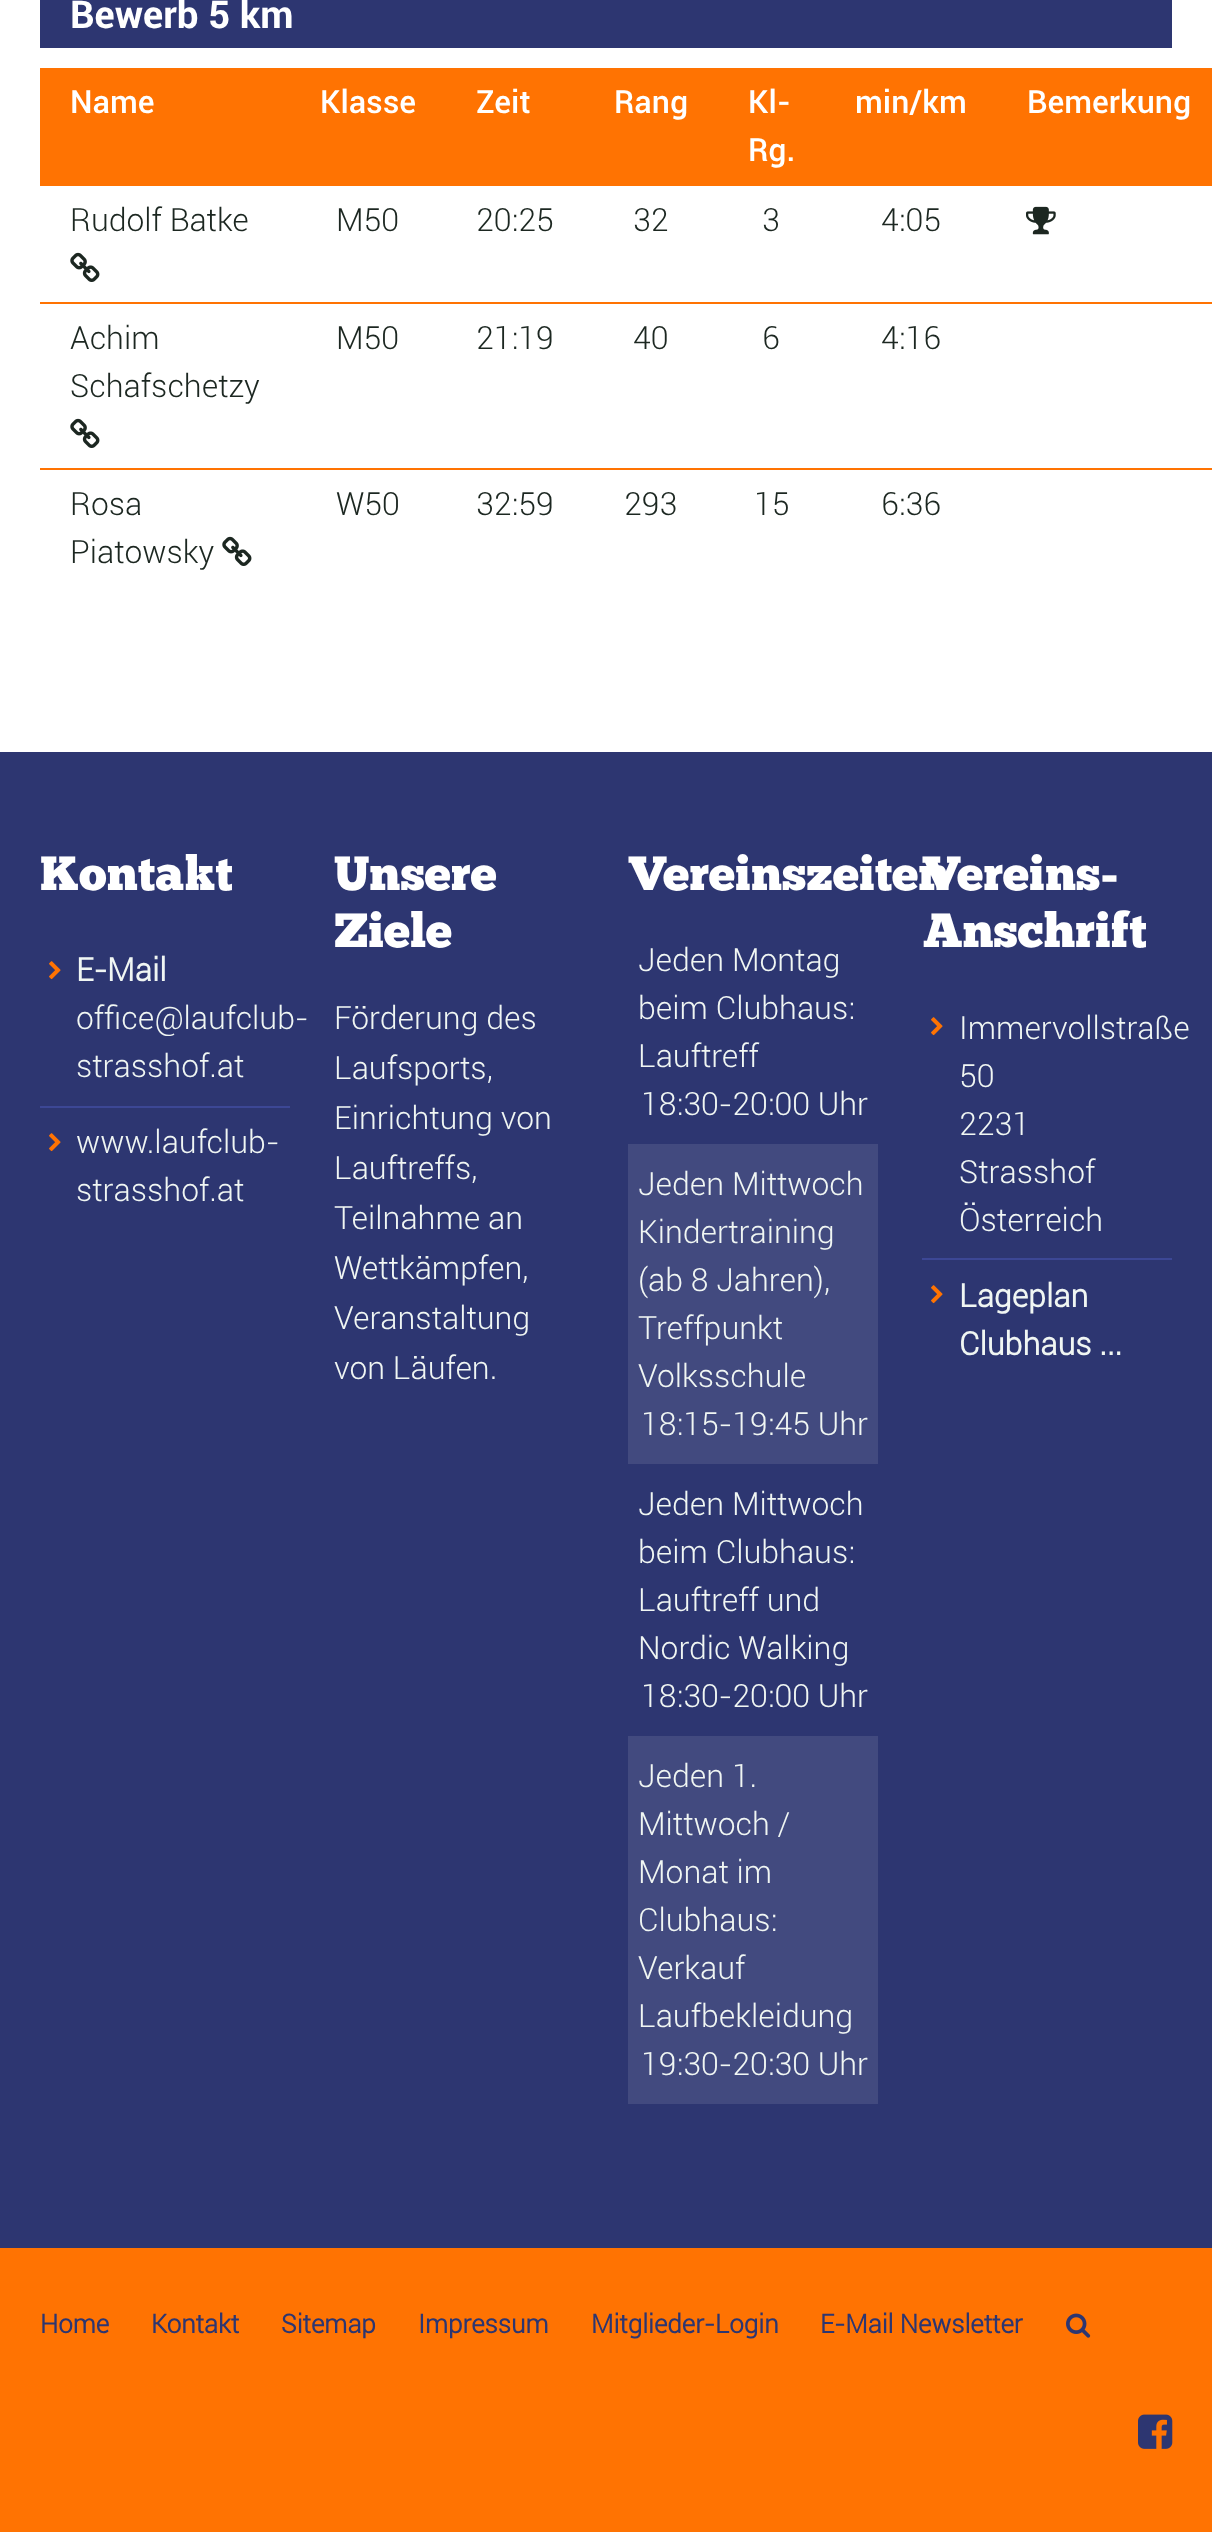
<!DOCTYPE html>
<meta charset="utf-8">
<style>body { margin: 0 } canvas { display: block }</style>
<canvas id="canvas" width="1212" height="2532"></canvas>
<img id="img1" src="images/1.png" hidden>
<img id="img2" src="images/2.png" hidden>
<img id="img3" src="images/3.png" hidden>
<img id="img4" src="images/4.png" hidden>
<img id="img5" src="images/5.png" hidden>
<script>
window.onload = function () {
    const canvas = document.getElementById('canvas');
    const context = canvas.getContext('2d');
    context.miterLimit = 4;
    context.fontKerning = 'normal';

    context.fillStyle = 'rgb(255, 255, 255)';
    context.fillRect(0, 0, 1212, 2532);
    context.fillStyle = 'rgb(45, 54, 113)';
    context.fillRect(40, 0, 1132, 48);
    context.fillStyle = 'rgb(255, 115, 2)';
    context.fillRect(40, 68, 1172, 118);
    context.drawImage(document.getElementById('img1'), 70, 252, 30, 30);
    context.drawImage(document.getElementById('img2'), 1026, 206, 30, 29);
    context.fillRect(40, 302, 1172, 2);
    context.drawImage(document.getElementById('img1'), 70, 418, 30, 30);
    context.fillRect(40, 468, 1172, 2);
    context.drawImage(document.getElementById('img1'), 222, 536, 30, 30);
    context.fillStyle = 'rgb(45, 54, 113)';
    context.fillRect(0, 752, 1212, 1496);
    context.fillStyle = 'rgb(60, 71, 149)';
    context.fillRect(40, 1106, 250, 2);
    context.drawImage(document.getElementById('img3'), 49, 961, 12, 19);
    context.drawImage(document.getElementById('img3'), 49, 1133, 12, 19);
    context.fillStyle = 'rgb(66, 74, 127)';
    context.fillRect(628, 1144, 250, 320);
    context.fillRect(628, 1736, 250, 368);
    context.fillStyle = 'rgb(60, 71, 149)';
    context.fillRect(922, 1258, 250, 2);
    context.drawImage(document.getElementById('img3'), 931, 1017, 12, 19);
    context.drawImage(document.getElementById('img3'), 931, 1285, 12, 19);
    context.fillStyle = 'rgb(255, 115, 2)';
    context.fillRect(0, 2248, 1212, 284);
    context.drawImage(document.getElementById('img4'), 1066, 2313, 25, 25);
    context.drawImage(document.getElementById('img5'), 1138, 2414, 35, 35);
    context.font = 'bold 38.5px Roboto';
    context.fillStyle = 'rgb(255, 255, 255)';
    context.fillText('Bewerb 5 km', 70, 28);
    context.font = '500 32px Roboto';
    context.fillText('Name', 70, 113);
    context.fillText('Klasse', 320, 113);
    context.fillText('Zeit', 476, 113);
    context.fillText('Rang', 614, 113);
    context.fillText('Kl-', 748, 113);
    context.fillText('Rg.', 748, 161);
    context.fillText('min/km', 855, 113);
    context.fillText('Bemerkung', 1027, 113);
    context.font = '300 32px Roboto';
    context.fillStyle = 'rgb(28, 39, 33)';
    context.fillText('Rudolf Batke', 70, 231);
    context.fillText('M50', 336, 231);
    context.fillText('20:25', 476, 231);
    context.fillText('32', 633, 231);
    context.fillText('3', 762, 231);
    context.fillText('4:05', 881, 231);
    context.fillText('Achim', 70, 349);
    context.fillText('Schafschetzy', 70, 397);
    context.fillText('M50', 336, 349);
    context.fillText('21:19', 476, 349);
    context.fillText('40', 633, 349);
    context.fillText('6', 762, 349);
    context.fillText('4:16', 881, 349);
    context.fillText('Rosa', 70, 515);
    context.fillText('Piatowsky', 70, 563);
    context.fillText('W50', 336, 515);
    context.fillText('32:59', 476, 515);
    context.fillText('293', 624, 515);
    context.fillText('15', 754, 515);
    context.fillText('6:36', 881, 515);
    context.font = '48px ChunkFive';
    context.fillStyle = 'rgb(255, 255, 255)';
    context.fillText('Kontakt', 40, 890);
    context.font = 'bold 32px "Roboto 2"';
    context.fillStyle = 'rgb(240, 246, 243)';
    context.fillText('E-Mail', 76, 981);
    context.font = '300 32px Roboto';
    context.fillText('office@laufclub-', 76, 1029);
    context.fillText('strasshof.at', 76, 1077);
    context.fillText('www.laufclub-', 76, 1153);
    context.fillText('strasshof.at', 76, 1201);
    context.font = '48px ChunkFive';
    context.fillStyle = 'rgb(255, 255, 255)';
    context.fillText('Unsere', 334, 890);
    context.fillText('Ziele', 334, 947);
    context.font = '300 32px Roboto';
    context.fillStyle = 'rgb(240, 246, 243)';
    context.fillText('Förderung des', 334, 1029);
    context.fillText('Laufsports,', 334, 1079);
    context.fillText('Einrichtung von', 334, 1129);
    context.fillText('Lauftreffs,', 334, 1179);
    context.fillText('Teilnahme an', 334, 1229);
    context.fillText('Wettkämpfen,', 334, 1279);
    context.fillText('Veranstaltung', 334, 1329);
    context.fillText('von Läufen.', 334, 1379);
    context.font = '48px ChunkFive';
    context.fillStyle = 'rgb(255, 255, 255)';
    context.fillText('Vereinszeiten', 629, 890);
    context.font = '300 32px Roboto';
    context.fillStyle = 'rgb(240, 246, 243)';
    context.fillText('Jeden Montag', 638, 971);
    context.fillText('beim Clubhaus:', 638, 1019);
    context.fillText('Lauftreff', 638, 1067);
    context.fillText('18:30-20:00 Uhr', 641, 1115);
    context.fillText('Jeden Mittwoch', 638, 1195);
    context.fillText('Kindertraining', 638, 1243);
    context.fillText('(ab 8 Jahren),', 638, 1291);
    context.fillText('Treffpunkt', 638, 1339);
    context.fillText('Volksschule', 638, 1387);
    context.fillText('18:15-19:45 Uhr', 641, 1435);
    context.fillText('Jeden Mittwoch', 638, 1515);
    context.fillText('beim Clubhaus:', 638, 1563);
    context.fillText('Lauftreff und', 638, 1611);
    context.fillText('Nordic Walking', 638, 1659);
    context.fillText('18:30-20:00 Uhr', 641, 1707);
    context.fillText('Jeden 1.', 638, 1787);
    context.fillText('Mittwoch /', 638, 1835);
    context.fillText('Monat im', 638, 1883);
    context.fillText('Clubhaus:', 638, 1931);
    context.fillText('Verkauf', 638, 1979);
    context.fillText('Laufbekleidung', 638, 2027);
    context.fillText('19:30-20:30 Uhr', 641, 2075);
    context.font = '48px ChunkFive';
    context.fillStyle = 'rgb(255, 255, 255)';
    context.fillText('Vereins-', 923, 890);
    context.fillText('Anschrift', 923, 947);
    context.font = '300 32px Roboto';
    context.fillStyle = 'rgb(240, 246, 243)';
    context.fillText('Immervollstraße', 959, 1039);
    context.fillText('50', 959, 1087);
    context.fillText('2231', 959, 1135);
    context.fillText('Strasshof', 959, 1183);
    context.fillText('Österreich', 959, 1231);
    context.font = 'bold 32px "Roboto 2"';
    context.fillText('Lageplan', 959, 1307);
    context.fillText('Clubhaus ...', 959, 1355);
    context.font = 'bold 26px "Roboto 2"';
    context.fillStyle = 'rgb(45, 54, 113)';
    context.fillText('Home', 40, 2333);
    context.fillText('Kontakt', 151, 2333);
    context.fillText('Sitemap', 281, 2333);
    context.fillText('Impressum', 418, 2333);
    context.fillText('Mitglieder-Login', 591, 2333);
    context.fillText('E-Mail Newsletter', 820, 2333);
};
</script>
